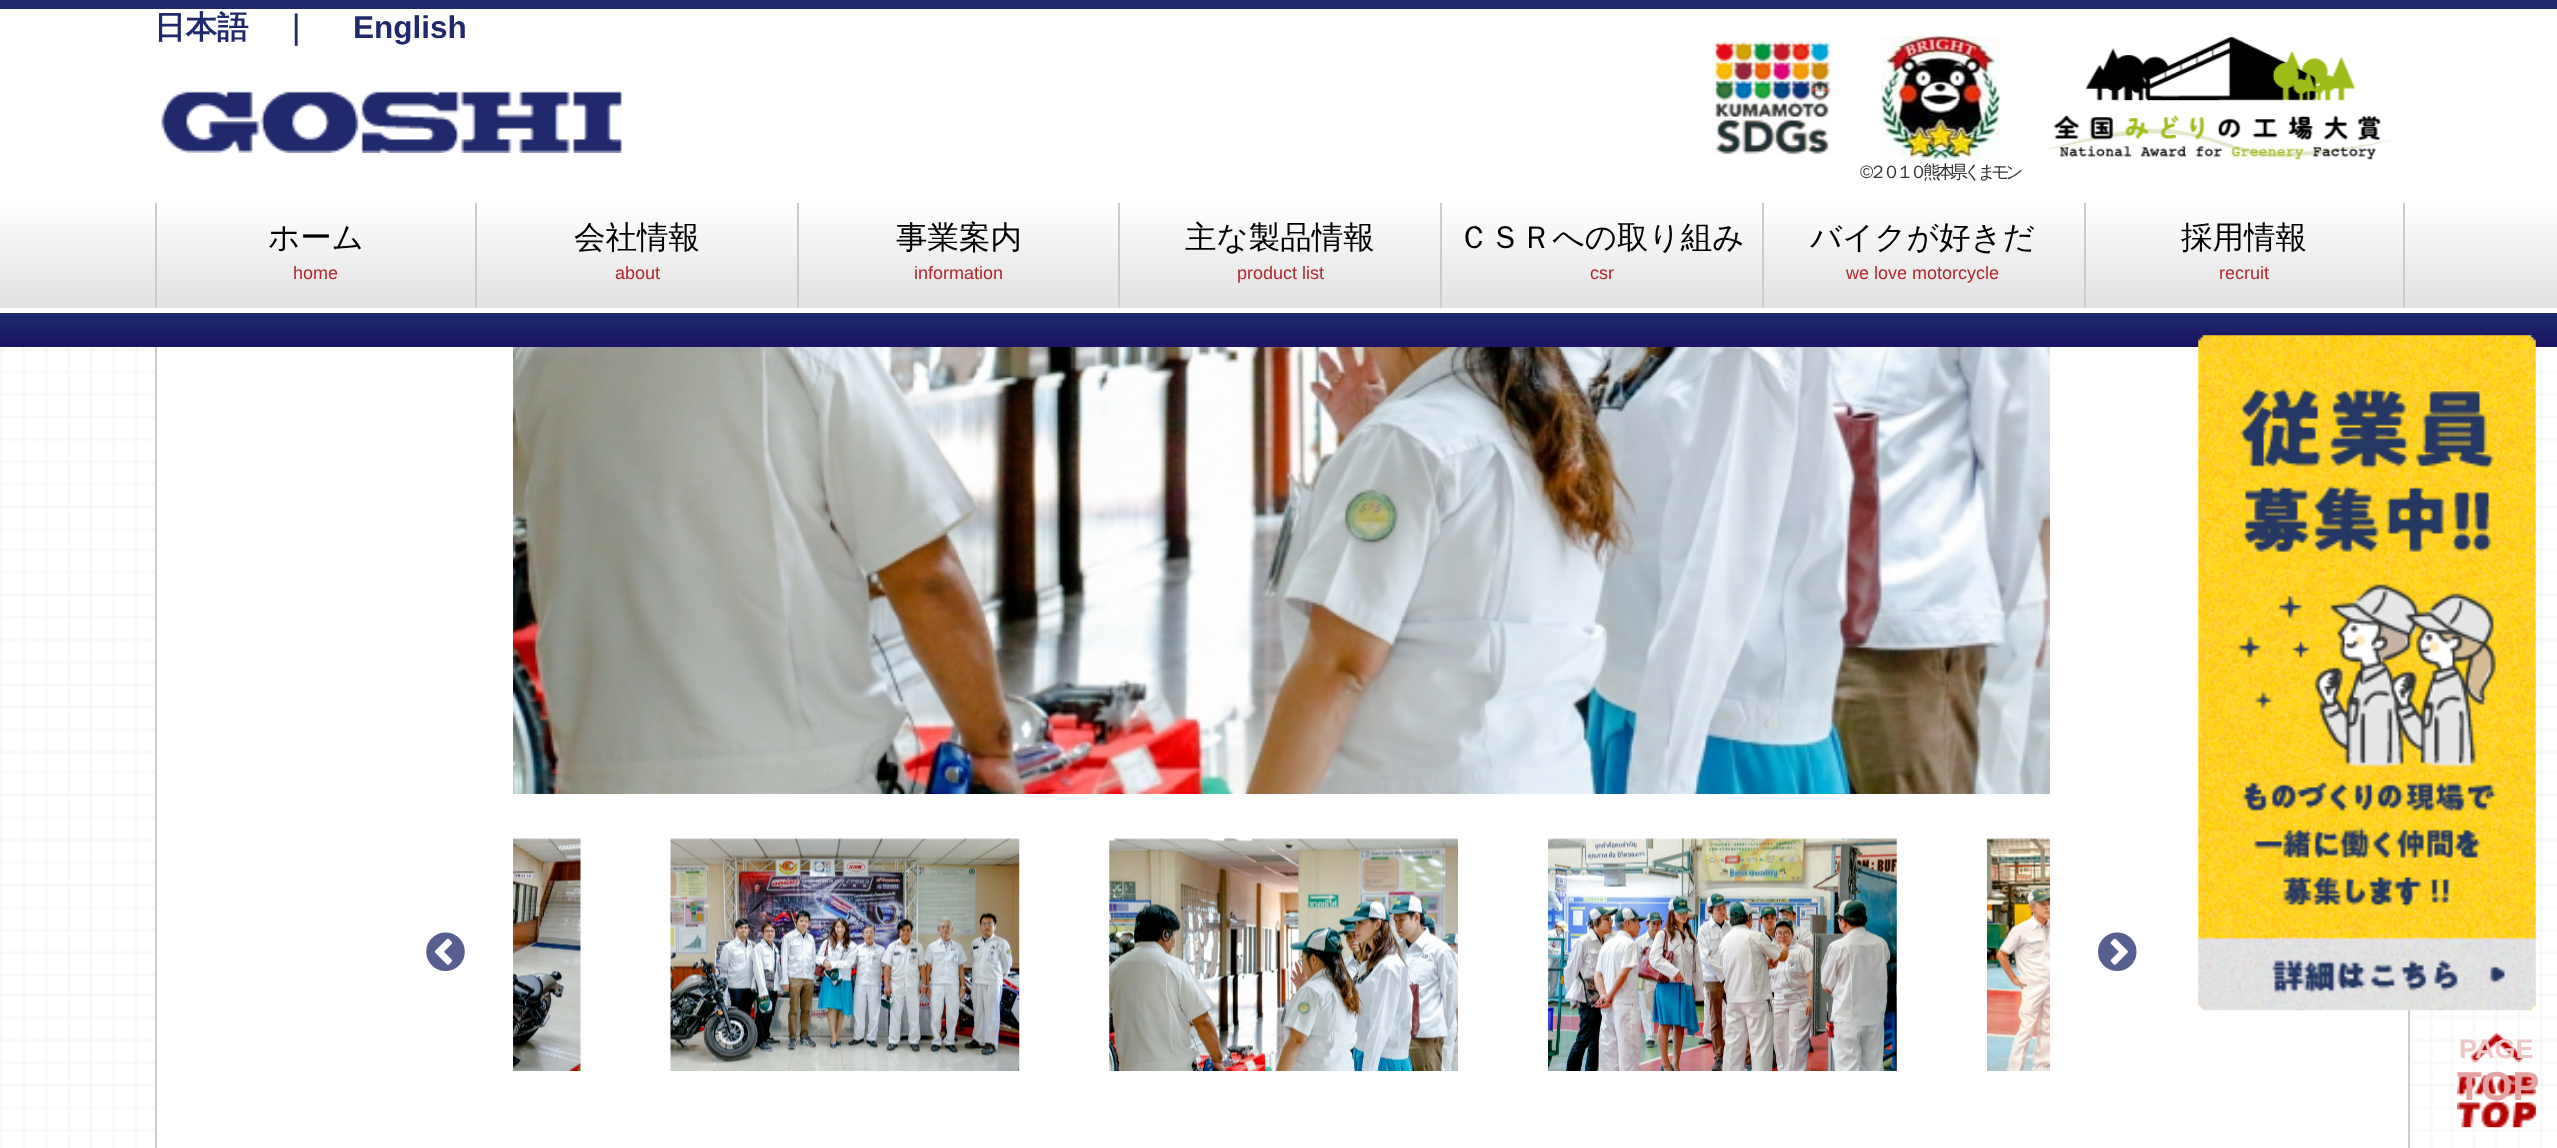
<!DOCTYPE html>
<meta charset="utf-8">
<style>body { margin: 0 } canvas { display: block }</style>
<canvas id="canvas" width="2557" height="1148"></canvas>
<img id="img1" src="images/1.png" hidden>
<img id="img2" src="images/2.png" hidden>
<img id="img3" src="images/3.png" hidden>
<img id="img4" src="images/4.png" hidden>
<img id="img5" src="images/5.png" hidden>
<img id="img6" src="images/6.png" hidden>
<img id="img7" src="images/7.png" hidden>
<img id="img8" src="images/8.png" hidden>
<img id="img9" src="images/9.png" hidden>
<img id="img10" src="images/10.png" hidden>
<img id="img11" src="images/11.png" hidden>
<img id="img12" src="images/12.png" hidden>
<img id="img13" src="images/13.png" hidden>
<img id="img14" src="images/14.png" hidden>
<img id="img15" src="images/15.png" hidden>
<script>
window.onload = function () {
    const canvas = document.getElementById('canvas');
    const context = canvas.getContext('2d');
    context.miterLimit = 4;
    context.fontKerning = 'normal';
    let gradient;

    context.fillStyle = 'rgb(255, 255, 255)';
    context.fillRect(0, 0, 2557, 1148);
    context.drawImage(document.getElementById('img1'), 0, 347, 2557, 801);
    context.fillRect(157, 347, 2251, 801);
    context.strokeStyle = 'rgb(204, 204, 204)';
    context.lineWidth = 2;
    context.strokeRect(156, -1, 2253, 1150);
    context.drawImage(document.getElementById('img2'), 513, 347, 1537, 447);
    context.drawImage(document.getElementById('img3'), 426, 932, 39, 39);
    context.drawImage(document.getElementById('img4'), 513, 838, 68, 233);
    context.drawImage(document.getElementById('img5'), 670, 838, 350, 233);
    context.drawImage(document.getElementById('img6'), 1109, 838, 349, 233);
    context.drawImage(document.getElementById('img7'), 1548, 838, 349, 233);
    context.drawImage(document.getElementById('img8'), 1987, 838, 63, 233);
    context.drawImage(document.getElementById('img9'), 2098, 932, 39, 39);
    context.fillRect(155, 9, 2255, 194);
    context.fillStyle = 'rgb(31, 41, 108)';
    context.fillRect(0, 0, 2557, 9);
    context.drawImage(document.getElementById('img10'), 161, 91, 461, 62);
    context.drawImage(document.getElementById('img11'), 1712, 41, 119, 114);
    context.drawImage(document.getElementById('img12'), 2047, 36, 345, 124);
    context.drawImage(document.getElementById('img13'), 1880, 36, 121, 124);
    gradient = context.createLinearGradient(1279, 202, 1279, 308);
    gradient.addColorStop(0, 'rgb(255, 255, 255)');
    gradient.addColorStop(1, 'rgb(225, 225, 225)');
    context.fillStyle = gradient;
    context.fillRect(0, 203, 2557, 105);
    context.fillStyle = 'rgb(202, 204, 205)';
    context.fillRect(155, 203, 2, 105);
    context.fillRect(475, 203, 2, 105);
    context.fillRect(797, 203, 2, 105);
    context.fillRect(1118, 203, 2, 105);
    context.fillRect(1440, 203, 2, 105);
    context.fillRect(1762, 203, 2, 105);
    context.fillRect(2403, 203, 2, 105);
    context.fillRect(2084, 203, 2, 105);
    gradient = context.createLinearGradient(1279, 313, 1279, 347);
    gradient.addColorStop(0, 'rgb(31, 41, 108)');
    gradient.addColorStop(1, 'rgb(27, 20, 100)');
    context.fillStyle = gradient;
    context.fillRect(0, 313, 2557, 34);
    context.fillStyle = 'rgb(255, 255, 255)';
    context.fillRect(155, 308, 2255, 5);
    context.drawImage(document.getElementById('img14'), 2198, 335, 338, 676);
    context.drawImage(document.getElementById('img15'), 2457, 1032, 79, 96);
    context.font = 'bold 31.5px WenQuanYi Zen Hei';
    context.fillStyle = 'rgb(31, 41, 108)';
    context.fillText('日本語　｜', 154, 38);
    context.font = 'bold 31.5px Liberation Sans';
    context.fillText('English', 353, 38);
    context.letterSpacing = '-4.5px';
    context.font = '18px Liberation Sans';
    context.fillStyle = 'rgb(51, 51, 51)';
    context.fillText('©', 1860, 178);
    context.font = '500 18px WenQuanYi Zen Hei';
    context.fillText('２０１０熊本県くまモン', 1869, 178);
    context.letterSpacing = '0px';
    context.font = '500 31.5px WenQuanYi Zen Hei';
    context.fillStyle = 'rgb(0, 0, 0)';
    context.fillText('ホーム', 268, 248);
    context.font = '18px Liberation Sans';
    context.fillStyle = 'rgb(177, 39, 45)';
    context.fillText('home', 293, 279);
    context.font = '500 31.5px WenQuanYi Zen Hei';
    context.fillStyle = 'rgb(0, 0, 0)';
    context.fillText('会社情報', 574, 248);
    context.font = '18px Liberation Sans';
    context.fillStyle = 'rgb(177, 39, 45)';
    context.fillText('about', 615, 279);
    context.font = '500 31.5px WenQuanYi Zen Hei';
    context.fillStyle = 'rgb(0, 0, 0)';
    context.fillText('事業案内', 896, 248);
    context.font = '18px Liberation Sans';
    context.fillStyle = 'rgb(177, 39, 45)';
    context.fillText('information', 914, 279);
    context.font = '500 31.5px WenQuanYi Zen Hei';
    context.fillStyle = 'rgb(0, 0, 0)';
    context.fillText('主な製品情報', 1185, 248);
    context.font = '18px Liberation Sans';
    context.fillStyle = 'rgb(177, 39, 45)';
    context.fillText('product list', 1237, 279);
    context.font = '500 31.5px WenQuanYi Zen Hei';
    context.fillStyle = 'rgb(0, 0, 0)';
    context.fillText('ＣＳＲへの取り組み', 1458, 248);
    context.font = '18px Liberation Sans';
    context.fillStyle = 'rgb(177, 39, 45)';
    context.fillText('csr', 1590, 279);
    context.font = '500 31.5px WenQuanYi Zen Hei';
    context.fillStyle = 'rgb(0, 0, 0)';
    context.fillText('バイクが好きだ', 1810, 248);
    context.font = '18px Liberation Sans';
    context.fillStyle = 'rgb(177, 39, 45)';
    context.fillText('we love motorcycle', 1846, 279);
    context.font = '500 31.5px WenQuanYi Zen Hei';
    context.fillStyle = 'rgb(0, 0, 0)';
    context.fillText('採用情報', 2181, 248);
    context.font = '18px Liberation Sans';
    context.fillStyle = 'rgb(177, 39, 45)';
    context.fillText('recruit', 2219, 279);
    context.font = 'bold 27px Liberation Sans';
    context.fillStyle = 'rgb(237, 198, 198)';
    context.fillText('PAGE', 2459, 1058);
    context.font = 'bold 40.5px Liberation Sans';
    context.fillStyle = 'rgb(228, 163, 163)';
    context.fillText('TOP', 2457, 1100);
};
</script>
